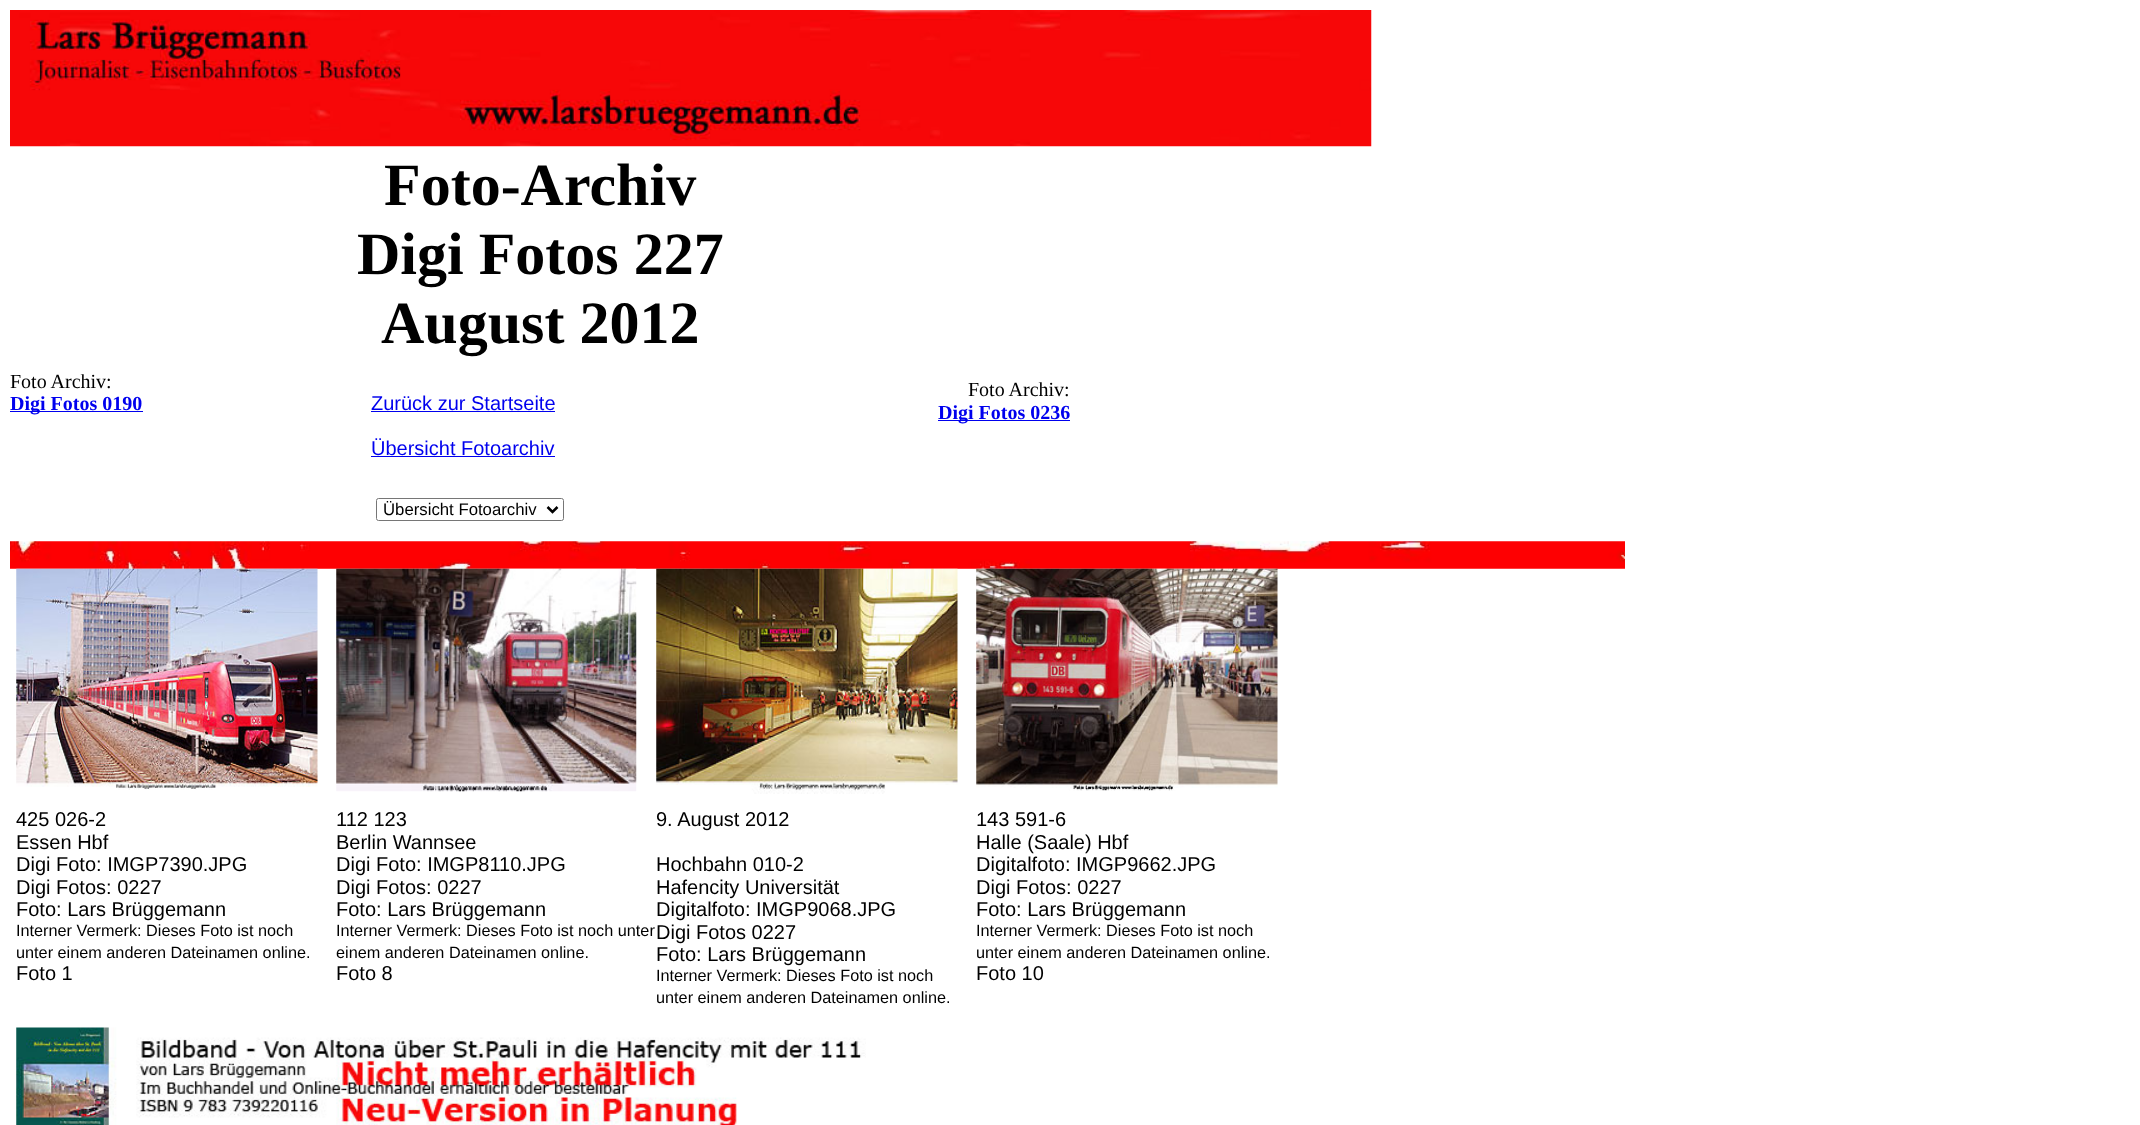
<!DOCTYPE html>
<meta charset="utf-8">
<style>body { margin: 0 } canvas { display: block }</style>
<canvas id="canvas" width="2140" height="1125"></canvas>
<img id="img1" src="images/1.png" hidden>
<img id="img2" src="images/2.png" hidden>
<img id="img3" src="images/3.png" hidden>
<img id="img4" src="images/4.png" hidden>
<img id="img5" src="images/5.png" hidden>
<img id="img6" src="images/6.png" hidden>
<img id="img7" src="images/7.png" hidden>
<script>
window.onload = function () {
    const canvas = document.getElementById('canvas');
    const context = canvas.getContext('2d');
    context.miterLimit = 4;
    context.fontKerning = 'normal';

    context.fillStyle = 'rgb(255, 255, 255)';
    context.fillRect(0, 0, 2140, 1125);
    context.drawImage(document.getElementById('img1'), 10, 10, 1362, 137);
    context.fillStyle = 'rgb(0, 0, 238)';
    context.fillRect(10, 411, 133, 1);
    context.fillRect(371, 411, 184, 1);
    context.fillRect(371, 456, 184, 1);
    context.fillRect(938, 420, 132, 1);
    context.beginPath();
    context.roundRect(376.5, 498.5, 187, 22, 2);
    context.strokeStyle = 'rgb(118, 118, 118)';
    context.stroke();
    context.beginPath();
    context.moveTo(547.5, 507);
    context.lineTo(552.5, 512);
    context.lineTo(557.5, 507);
    context.strokeStyle = 'rgb(0, 0, 0)';
    context.lineWidth = 2.5;
    context.stroke();
    context.drawImage(document.getElementById('img2'), 10, 541, 1615, 28);
    context.drawImage(document.getElementById('img3'), 16, 568, 302, 222);
    context.drawImage(document.getElementById('img4'), 336, 568, 301, 224);
    context.drawImage(document.getElementById('img5'), 656, 568, 302, 226);
    context.drawImage(document.getElementById('img6'), 976, 568, 302, 223);
    context.drawImage(document.getElementById('img7'), 16, 1027, 850, 98);
    context.font = 'bold 60px Liberation Serif';
    context.fillStyle = 'rgb(0, 0, 0)';
    context.fillText('Foto-Archiv', 384, 205);
    context.fillText('Digi Fotos 227', 357, 274);
    context.fillText('August 2012', 381, 343);
    context.font = '20px Liberation Serif';
    context.fillText('Foto Archiv:', 10, 388);
    context.font = 'bold 20px Liberation Serif';
    context.fillStyle = 'rgb(0, 0, 238)';
    context.fillText('Digi Fotos 0190', 10, 410);
    context.font = '20px Liberation Sans';
    context.fillText('Zurück zur Startseite', 371, 410);
    context.fillText('Übersicht Fotoarchiv', 371, 455);
    context.font = '20px Liberation Serif';
    context.fillStyle = 'rgb(0, 0, 0)';
    context.fillText('Foto Archiv:', 968, 396);
    context.font = 'bold 20px Liberation Serif';
    context.fillStyle = 'rgb(0, 0, 238)';
    context.fillText('Digi Fotos 0236', 938, 419);
    context.font = '16.75px Liberation Sans';
    context.fillStyle = 'rgb(0, 0, 0)';
    context.fillText('Übersicht Fotoarchiv', 383, 515);
    context.font = '20px Liberation Sans';
    context.fillText('425 026-2', 16, 826);
    context.fillText('Essen Hbf', 16, 849);
    context.fillText('Digi Foto: IMGP7390.JPG', 16, 871);
    context.fillText('Digi Fotos: 0227', 16, 894);
    context.fillText('Foto: Lars Brüggemann', 16, 916);
    context.font = '16.25px Liberation Sans';
    context.fillText('Interner Vermerk: Dieses Foto ist noch', 16, 936);
    context.fillText('unter einem anderen Dateinamen online.', 16, 958);
    context.font = '20px Liberation Sans';
    context.fillText('Foto 1', 16, 980);
    context.fillText('112 123', 336, 826);
    context.fillText('Berlin Wannsee', 336, 849);
    context.fillText('Digi Foto: IMGP8110.JPG', 336, 871);
    context.fillText('Digi Fotos: 0227', 336, 894);
    context.fillText('Foto: Lars Brüggemann', 336, 916);
    context.font = '16.25px Liberation Sans';
    context.fillText('Interner Vermerk: Dieses Foto ist noch unter', 336, 936);
    context.fillText('einem anderen Dateinamen online.', 336, 958);
    context.font = '20px Liberation Sans';
    context.fillText('Foto 8', 336, 980);
    context.fillText('9. August 2012', 656, 826);
    context.fillText('Hochbahn 010-2', 656, 871);
    context.fillText('Hafencity Universität', 656, 894);
    context.fillText('Digitalfoto: IMGP9068.JPG', 656, 916);
    context.fillText('Digi Fotos 0227', 656, 939);
    context.fillText('Foto: Lars Brüggemann', 656, 961);
    context.font = '16.25px Liberation Sans';
    context.fillText('Interner Vermerk: Dieses Foto ist noch', 656, 981);
    context.fillText('unter einem anderen Dateinamen online.', 656, 1003);
    context.font = '20px Liberation Sans';
    context.fillText('143 591-6', 976, 826);
    context.fillText('Halle (Saale) Hbf', 976, 849);
    context.fillText('Digitalfoto: IMGP9662.JPG', 976, 871);
    context.fillText('Digi Fotos: 0227', 976, 894);
    context.fillText('Foto: Lars Brüggemann', 976, 916);
    context.font = '16.25px Liberation Sans';
    context.fillText('Interner Vermerk: Dieses Foto ist noch', 976, 936);
    context.fillText('unter einem anderen Dateinamen online.', 976, 958);
    context.font = '20px Liberation Sans';
    context.fillText('Foto 10', 976, 980);
};
</script>
